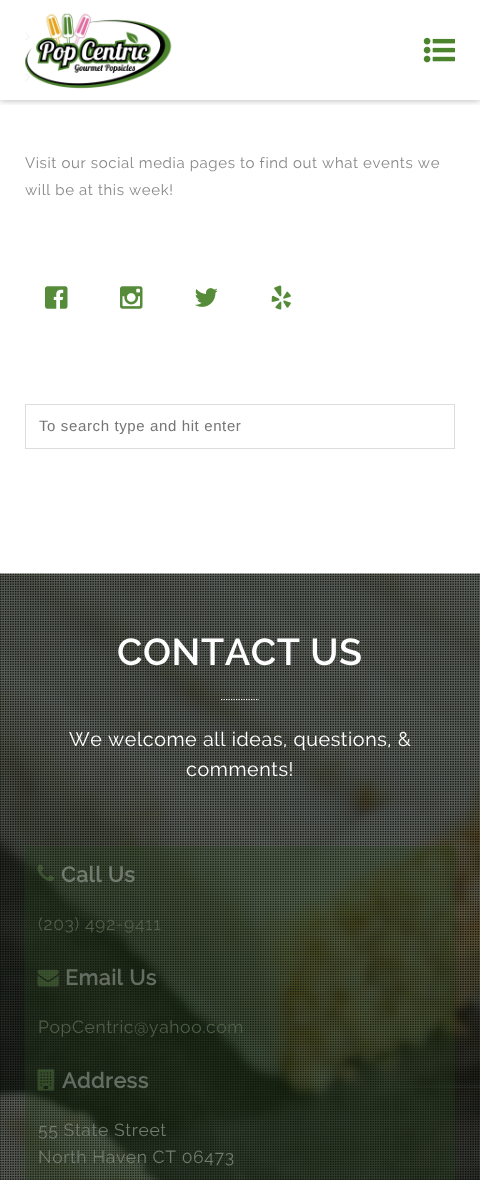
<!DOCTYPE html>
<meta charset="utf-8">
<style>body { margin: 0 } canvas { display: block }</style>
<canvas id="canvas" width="480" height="1180"></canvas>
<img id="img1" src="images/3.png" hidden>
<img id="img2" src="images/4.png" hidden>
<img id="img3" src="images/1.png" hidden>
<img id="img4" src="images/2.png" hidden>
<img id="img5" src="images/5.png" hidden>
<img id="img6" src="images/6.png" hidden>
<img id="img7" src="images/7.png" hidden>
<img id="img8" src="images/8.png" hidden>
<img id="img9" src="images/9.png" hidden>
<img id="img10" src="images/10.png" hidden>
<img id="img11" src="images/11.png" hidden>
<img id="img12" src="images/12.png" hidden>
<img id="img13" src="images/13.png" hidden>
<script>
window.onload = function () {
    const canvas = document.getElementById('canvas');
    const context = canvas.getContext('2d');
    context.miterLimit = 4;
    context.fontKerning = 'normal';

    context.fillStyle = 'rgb(255, 255, 255)';
    context.fillRect(0, 0, 480, 1180);
    context.drawImage(document.getElementById('img1'), 25, 32, 5, 9);
    context.drawImage(document.getElementById('img2'), 25, 73, 5, 9);
    context.save();
    context.beginPath();
    context.rect(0, 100, 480, 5);
    context.clip();
    context.fillStyle = 'rgba(0, 0, 0, 0.25)';
    context.filter = 'blur(3px)';
    context.beginPath();
    context.rect(0, 1, 480, 100);
    context.fill();
    context.filter = 'none';
    context.restore();
    context.drawImage(document.getElementById('img3'), 25, 13, 147, 76);
    context.drawImage(document.getElementById('img4'), 423, 37, 32, 26);
    context.drawImage(document.getElementById('img5'), 45, 286, 23, 23);
    context.drawImage(document.getElementById('img6'), 120, 286, 23, 23);
    context.drawImage(document.getElementById('img7'), 195, 288, 23, 19);
    context.drawImage(document.getElementById('img8'), 271, 285, 20, 25);
    context.strokeStyle = 'rgb(221, 221, 221)';
    context.strokeRect(25.5, 404.5, 429, 44);
    context.drawImage(document.getElementById('img9'), 0, 573, 480, 607);
    context.save();
    context.beginPath();
    context.moveTo(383, 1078);
    context.lineTo(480, 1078);
    context.lineTo(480, 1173);
    context.lineTo(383, 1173);
    context.closePath();
    context.moveTo(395.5, 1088);
    context.lineTo(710.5, 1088);
    context.bezierCurveTo(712, 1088, 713, 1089, 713, 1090.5);
    context.lineTo(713, 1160.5);
    context.bezierCurveTo(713, 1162, 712, 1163, 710.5, 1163);
    context.lineTo(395.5, 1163);
    context.bezierCurveTo(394, 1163, 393, 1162, 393, 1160.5);
    context.lineTo(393, 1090.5);
    context.bezierCurveTo(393, 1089, 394, 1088, 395.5, 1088);
    context.closePath();
    context.clip('evenodd');
    context.fillStyle = 'rgb(101, 109, 97)';
    context.filter = 'blur(3px)';
    context.beginPath();
    context.roundRect(393, 1088, 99, 75, 2.5);
    context.fill();
    context.filter = 'none';
    context.restore();
    context.drawImage(document.getElementById('img10'), 0, 573, 480, 607);
    context.beginPath();
    context.moveTo(221, 699.5);
    context.lineTo(259, 699.5);
    context.strokeStyle = 'rgb(255, 255, 255)';
    context.lineWidth = 1.2;
    context.setLineDash([1.25, 1.25]);
    context.stroke();
    context.fillStyle = 'rgba(37, 66, 25, 0.25)';
    context.fillRect(25, 846, 430, 334);
    context.drawImage(document.getElementById('img11'), 37, 864, 17, 18);
    context.drawImage(document.getElementById('img12'), 37, 969, 22, 18);
    context.drawImage(document.getElementById('img13'), 37, 1069, 18, 22);
    context.letterSpacing = '0.62px';
    context.font = '15px Raleway';
    context.fillStyle = 'rgb(136, 136, 136)';
    context.fillText('Visit our social media pages to find out what events we', 25, 168);
    context.fillText('will be at this week!', 25, 195);
    context.font = '15px Liberation Sans';
    context.fillStyle = 'rgb(117, 117, 117)';
    context.fillText('To search type and hit enter', 39, 431);
    context.font = '600 37.5px Raleway';
    context.fillStyle = 'rgb(255, 255, 255)';
    context.fillText('CONTACT US', 117, 665);
    context.font = '19.7px Raleway';
    context.fillText('We welcome all ideas, questions, &', 69, 746);
    context.fillText('comments!', 186, 776);
    context.font = 'bold 21.25px Raleway';
    context.fillStyle = 'rgb(114, 121, 110)';
    context.fillText('Call Us', 61, 882);
    context.font = '17.5px Raleway';
    context.fillStyle = 'rgb(79, 94, 71)';
    context.fillText('(203) 492-9411', 38, 930);
    context.font = 'bold 21.25px Raleway';
    context.fillStyle = 'rgb(101, 108, 98)';
    context.fillText('Email Us', 65, 985);
    context.font = '17.5px Raleway';
    context.fillStyle = 'rgb(79, 94, 71)';
    context.fillText('PopCentric@yahoo.com', 38, 1033);
    context.font = 'bold 21.25px Raleway';
    context.fillStyle = 'rgb(101, 108, 98)';
    context.fillText('Address', 62, 1088);
    context.font = '17.5px Raleway';
    context.fillStyle = 'rgb(114, 121, 110)';
    context.fillText('55 State Street', 38, 1136);
    context.fillText('North Haven CT 06473', 38, 1163);
};
</script>
